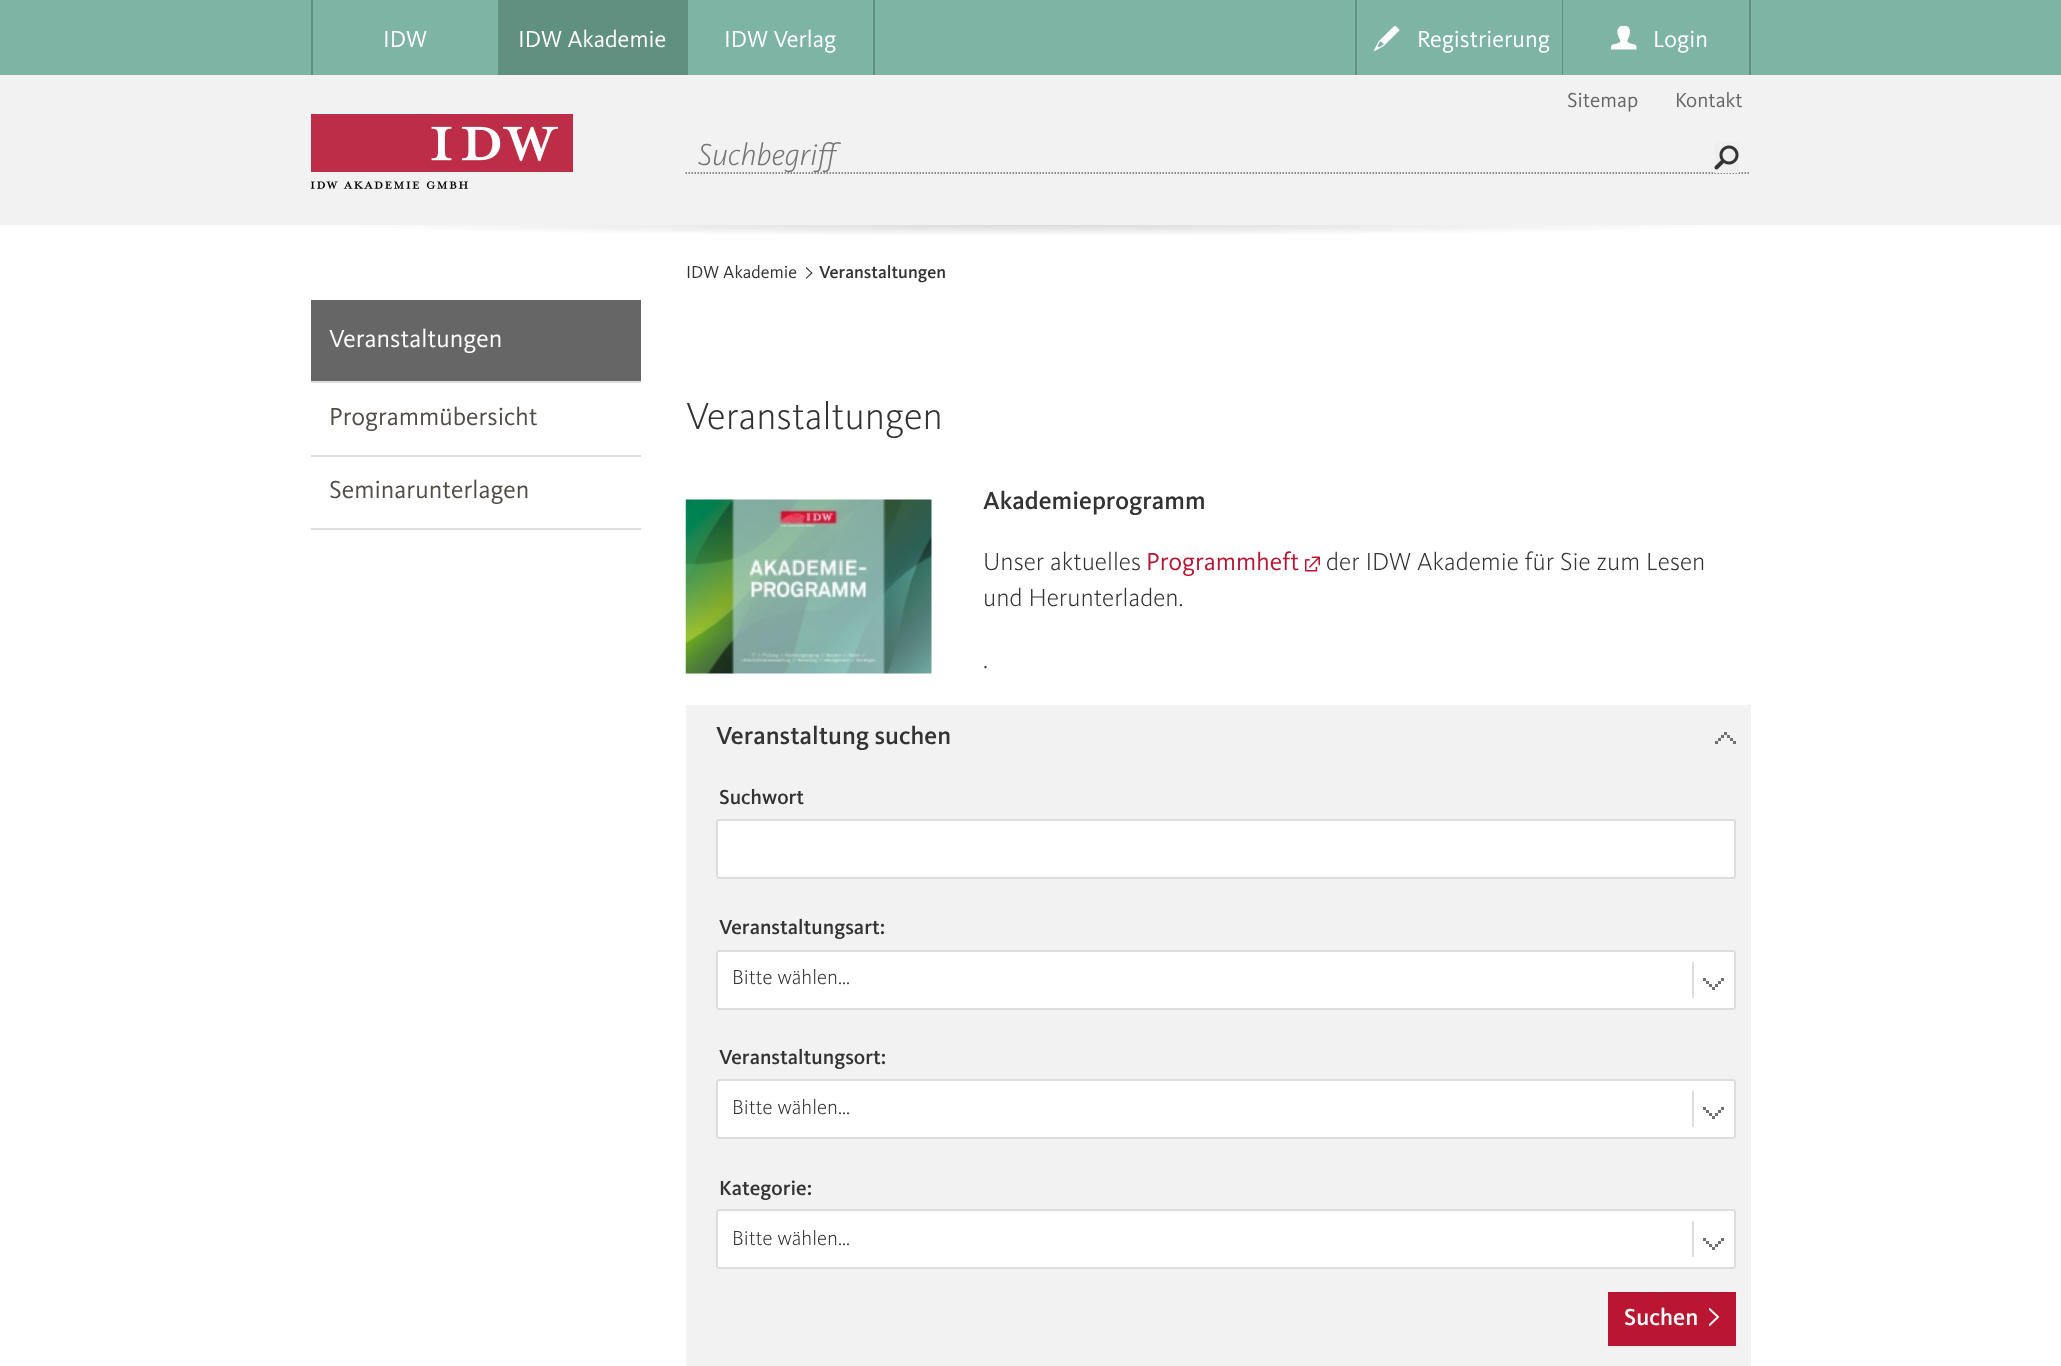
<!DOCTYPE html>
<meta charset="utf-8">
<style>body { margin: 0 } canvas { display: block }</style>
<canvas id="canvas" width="2061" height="1366"></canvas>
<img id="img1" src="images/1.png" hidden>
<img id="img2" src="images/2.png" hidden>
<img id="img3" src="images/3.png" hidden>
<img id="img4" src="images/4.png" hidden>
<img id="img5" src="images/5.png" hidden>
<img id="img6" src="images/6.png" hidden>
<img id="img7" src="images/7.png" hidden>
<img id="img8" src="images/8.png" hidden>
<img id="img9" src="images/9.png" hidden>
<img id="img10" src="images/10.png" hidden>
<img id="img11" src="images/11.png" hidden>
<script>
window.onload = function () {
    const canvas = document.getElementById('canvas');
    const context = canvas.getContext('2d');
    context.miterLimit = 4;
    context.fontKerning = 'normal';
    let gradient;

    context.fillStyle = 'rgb(255, 255, 255)';
    context.fillRect(0, 0, 2061, 1366);
    context.fillStyle = 'rgb(125, 180, 164)';
    context.fillRect(0, 0, 2061, 75);
    context.fillStyle = 'rgb(96, 144, 127)';
    context.fillRect(873, 0, 2, 75);
    context.fillRect(311, 0, 2, 75);
    context.fillRect(498, 0, 190, 75);
    context.fillRect(1749, 0, 2, 75);
    context.fillRect(1355, 0, 2, 75);
    context.drawImage(document.getElementById('img1'), 1374, 26, 26, 25);
    context.fillRect(1562, 0, 1, 75);
    context.drawImage(document.getElementById('img2'), 1611, 26, 26, 24);
    context.fillStyle = 'rgb(242, 242, 242)';
    context.fillRect(0, 75, 2061, 150);
    context.drawImage(document.getElementById('img3'), 311, 114, 262, 75);
    context.beginPath();
    context.moveTo(685.5, 173);
    context.lineTo(1750.5, 173);
    context.strokeStyle = 'rgb(102, 102, 102)';
    context.lineWidth = 1.5;
    context.setLineDash([1.5, 1.5]);
    context.stroke();
    context.fillStyle = 'rgb(239, 239, 239)';
    context.fillRect(1715, 141, 24, 32);
    context.drawImage(document.getElementById('img4'), 1714, 145, 25, 25);
    gradient = context.createRadialGradient(1031, 14727.27, 0, 1031, 14727.27, 720);
    gradient.addColorStop(0, 'rgb(217, 217, 217)');
    gradient.addColorStop(1, 'rgb(255, 255, 255)');
    context.fillStyle = gradient;
    context.beginPath();
    context.rect(359, 225, 1344, 10);
    context.save();
    context.clip();
    context.scale(1, 11 / 720);
    context.fillRect(0, 0, 2061, 89411);
    context.restore();
    context.fillStyle = 'rgb(102, 102, 102)';
    context.fillRect(311, 300, 330, 81);
    context.fillStyle = 'rgb(221, 221, 221)';
    context.fillRect(311, 381, 330, 2);
    context.fillRect(311, 455, 330, 2);
    context.fillRect(311, 528, 330, 2);
    context.drawImage(document.getElementById('img5'), 806, 267, 7, 12);
    context.drawImage(document.getElementById('img6'), 685, 499, 247, 175);
    context.drawImage(document.getElementById('img7'), 1305, 556, 15, 16);
    context.fillStyle = 'rgb(242, 242, 242)';
    context.fillRect(686, 705, 1065, 661);
    context.drawImage(document.getElementById('img8'), 1715, 732, 21, 12);
    context.fillStyle = 'rgb(255, 255, 255)';
    context.beginPath();
    context.roundRect(717, 820, 1018, 58, 2);
    context.fill();
    context.strokeStyle = 'rgb(221, 221, 221)';
    context.lineWidth = 2;
    context.setLineDash([]);
    context.stroke();
    context.beginPath();
    context.roundRect(716, 950, 1020, 60, 3);
    context.fill();
    context.drawImage(document.getElementById('img9'), 1692, 962, 32, 36);
    context.beginPath();
    context.roundRect(717, 951, 1018, 58, 2);
    context.stroke();
    context.beginPath();
    context.roundRect(716, 1079, 1020, 60, 3);
    context.fill();
    context.drawImage(document.getElementById('img9'), 1692, 1091, 32, 36);
    context.beginPath();
    context.roundRect(717, 1080, 1018, 58, 2);
    context.stroke();
    context.beginPath();
    context.roundRect(716, 1209, 1020, 60, 3);
    context.fill();
    context.drawImage(document.getElementById('img10'), 1692, 1221, 32, 36);
    context.beginPath();
    context.roundRect(717, 1210, 1018, 58, 2);
    context.stroke();
    context.fillStyle = 'rgb(186, 22, 49)';
    context.fillRect(1608, 1292, 128, 54);
    context.drawImage(document.getElementById('img11'), 1709, 1308, 10, 18);
    context.font = '24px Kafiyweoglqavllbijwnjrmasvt';
    context.fillStyle = 'rgb(255, 255, 255)';
    context.fillText('IDW', 383, 47);
    context.fillText('IDW Akademie', 518, 47);
    context.fillText('IDW Verlag', 724, 47);
    context.fillText('Registrierung', 1417, 47);
    context.fillText('Login', 1653, 47);
    context.font = '21px Kafiyweoglqavllbijwnjrmasvt';
    context.fillStyle = 'rgb(102, 102, 102)';
    context.fillText('Sitemap', 1567, 107);
    context.fillText('Kontakt', 1675, 107);
    context.font = 'italic 300 31.5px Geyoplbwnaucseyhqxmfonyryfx';
    context.fillStyle = 'rgb(117, 117, 117)';
    context.fillText('Suchbegriff', 698, 165);
    context.font = '25.5px Kafiyweoglqavllbijwnjrmasvt';
    context.fillStyle = 'rgb(255, 255, 255)';
    context.fillText('Veranstaltungen', 329, 347);
    context.fillStyle = 'rgb(81, 76, 70)';
    context.fillText('Programmübersicht', 329, 425);
    context.fillText('Seminarunterlagen', 329, 498);
    context.font = '18px Kafiyweoglqavllbijwnjrmasvt';
    context.fillStyle = 'rgb(51, 51, 51)';
    context.fillText('IDW Akademie', 686, 278);
    context.font = '500 18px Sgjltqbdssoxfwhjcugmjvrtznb';
    context.fillText('Veranstaltungen', 819, 278);
    context.font = '300 39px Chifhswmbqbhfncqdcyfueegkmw';
    context.fillText('Veranstaltungen', 686, 429);
    context.font = '500 25.5px Sgjltqbdssoxfwhjcugmjvrtznb';
    context.fillText('Akademieprogramm', 983, 509);
    context.font = '300 25.5px Chifhswmbqbhfncqdcyfueegkmw';
    context.fillText('Unser aktuelles', 983, 570);
    context.font = '25.5px Kafiyweoglqavllbijwnjrmasvt';
    context.fillStyle = 'rgb(186, 22, 49)';
    context.fillText('Programmheft', 1146, 570);
    context.font = '300 25.5px Chifhswmbqbhfncqdcyfueegkmw';
    context.fillStyle = 'rgb(51, 51, 51)';
    context.fillText('der IDW Akademie für Sie zum Lesen', 1326, 570);
    context.fillText('und Herunterladen.', 983, 606);
    context.fillText('.', 983, 668);
    context.font = '500 25.5px Sgjltqbdssoxfwhjcugmjvrtznb';
    context.fillText('Veranstaltung suchen', 716, 744);
    context.font = '500 21px Sgjltqbdssoxfwhjcugmjvrtznb';
    context.fillText('Suchwort', 719, 804);
    context.fillText('Veranstaltungsart:', 719, 934);
    context.font = '300 21px Chifhswmbqbhfncqdcyfueegkmw';
    context.fillText('Bitte wählen...', 732, 984);
    context.font = '500 21px Sgjltqbdssoxfwhjcugmjvrtznb';
    context.fillText('Veranstaltungsort:', 719, 1064);
    context.font = '300 21px Chifhswmbqbhfncqdcyfueegkmw';
    context.fillText('Bitte wählen...', 732, 1114);
    context.font = '500 21px Sgjltqbdssoxfwhjcugmjvrtznb';
    context.fillText('Kategorie:', 719, 1195);
    context.font = '300 21px Chifhswmbqbhfncqdcyfueegkmw';
    context.fillText('Bitte wählen...', 732, 1245);
    context.font = '500 24px Sgjltqbdssoxfwhjcugmjvrtznb';
    context.fillStyle = 'rgb(255, 255, 255)';
    context.fillText('Suchen', 1624, 1325);
};
</script>
